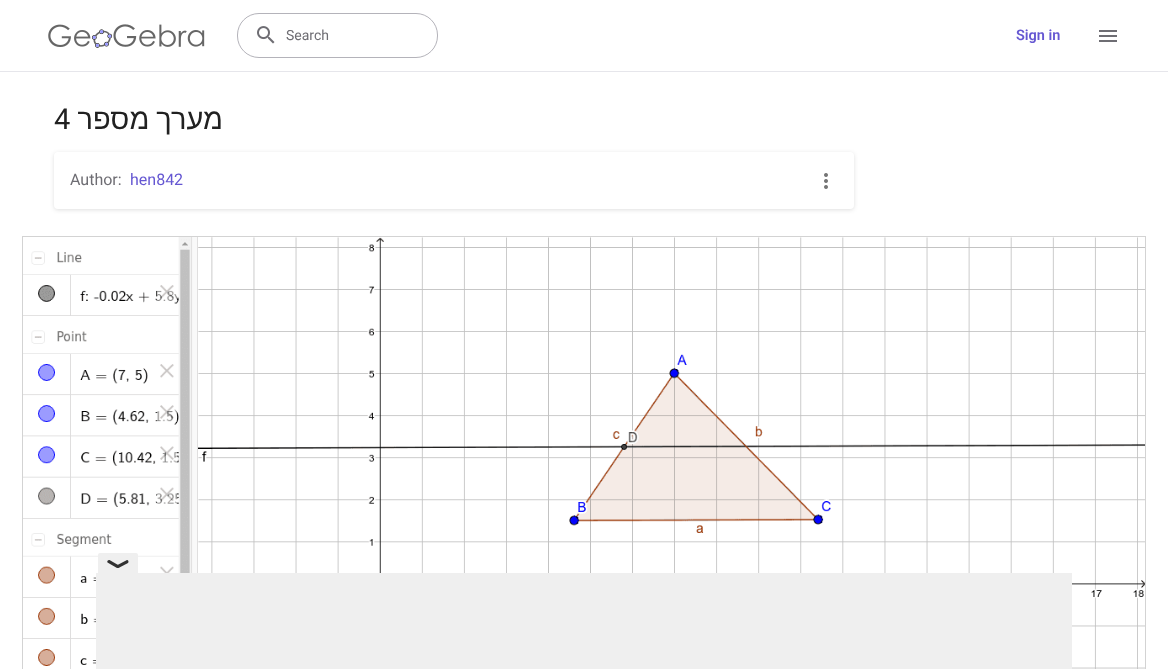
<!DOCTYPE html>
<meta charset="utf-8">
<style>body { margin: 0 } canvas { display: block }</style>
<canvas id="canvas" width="1168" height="669"></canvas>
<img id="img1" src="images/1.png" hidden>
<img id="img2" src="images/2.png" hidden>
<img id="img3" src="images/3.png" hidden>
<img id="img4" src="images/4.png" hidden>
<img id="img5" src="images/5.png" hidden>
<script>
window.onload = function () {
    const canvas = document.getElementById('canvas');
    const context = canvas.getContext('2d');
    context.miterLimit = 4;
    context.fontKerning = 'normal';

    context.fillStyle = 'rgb(255, 255, 255)';
    context.fillRect(0, 0, 1168, 669);
    context.fillStyle = 'rgb(230, 230, 235)';
    context.fillRect(0, 71, 1168, 1);
    context.drawImage(document.getElementById('img1'), 48, 24, 157, 24);
    context.beginPath();
    context.roundRect(237.5, 13.5, 200, 44, 21.5);
    context.strokeStyle = 'rgb(180, 179, 186)';
    context.stroke();
    context.drawImage(document.getElementById('img2'), 257, 26, 18, 18);
    context.drawImage(document.getElementById('img3'), 1099, 30, 18, 12);
    context.fillStyle = 'rgba(28, 28, 31, 0.14)';
    context.filter = 'blur(2px)';
    context.beginPath();
    context.roundRect(54, 153, 800, 57, 4);
    context.fill();
    context.filter = 'none';
    context.fillStyle = 'rgb(255, 255, 255)';
    context.beginPath();
    context.roundRect(54, 152, 800, 57, 4);
    context.fill();
    context.drawImage(document.getElementById('img4'), 824, 173, 4, 16);
    context.drawImage(document.getElementById('img5'), 23, 237, 1122, 432);
    context.strokeStyle = 'rgb(211, 211, 211)';
    context.strokeRect(22.5, 236.5, 1123, 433);
    context.fillStyle = 'rgb(239, 239, 239)';
    context.beginPath();
    context.roundRect(98, 553, 40, 20, [2, 2, 0, 0]);
    context.fill();
    context.fillStyle = 'rgb(49, 49, 49)';
    context.beginPath();
    context.moveTo(109.5, 560);
    context.lineTo(119, 565.5);
    context.bezierCurveTo(119.5, 567, 118, 568.5, 117, 568);
    context.lineTo(107.5, 562.5);
    context.bezierCurveTo(106.5, 561, 108.5, 559.5, 109.5, 560);
    context.closePath();
    context.fill();
    context.beginPath();
    context.moveTo(117.5, 565);
    context.lineTo(127, 560);
    context.bezierCurveTo(128.5, 560, 129, 562, 128, 563);
    context.lineTo(118.5, 568);
    context.bezierCurveTo(117, 568, 116.5, 566, 117.5, 565);
    context.closePath();
    context.fill();
    context.fillStyle = 'rgb(239, 239, 239)';
    context.fillRect(96, 573, 976, 96);
    context.font = '14px Roboto';
    context.fillStyle = 'rgb(110, 109, 115)';
    context.fillText('Search', 286, 40);
    context.font = '600 14.5px Roboto';
    context.fillStyle = 'rgb(101, 87, 210)';
    context.fillText('Sign in', 1016, 40);
    context.font = '29px Roboto';
    context.fillStyle = 'rgb(33, 33, 33)';
    context.fillText('4', 54, 129);
    context.wordSpacing = '-1px';
    context.direction = 'rtl';
    context.font = '29px Liberation Sans';
    context.fillText('מערך מספר', 223, 129);
    context.wordSpacing = '0px';
    context.direction = 'ltr';
    context.font = '16px Roboto';
    context.fillStyle = 'rgb(110, 109, 115)';
    context.fillText('Author:', 70, 185);
    context.fillStyle = 'rgb(101, 87, 210)';
    context.fillText('hen842', 130, 185);
};
</script>
